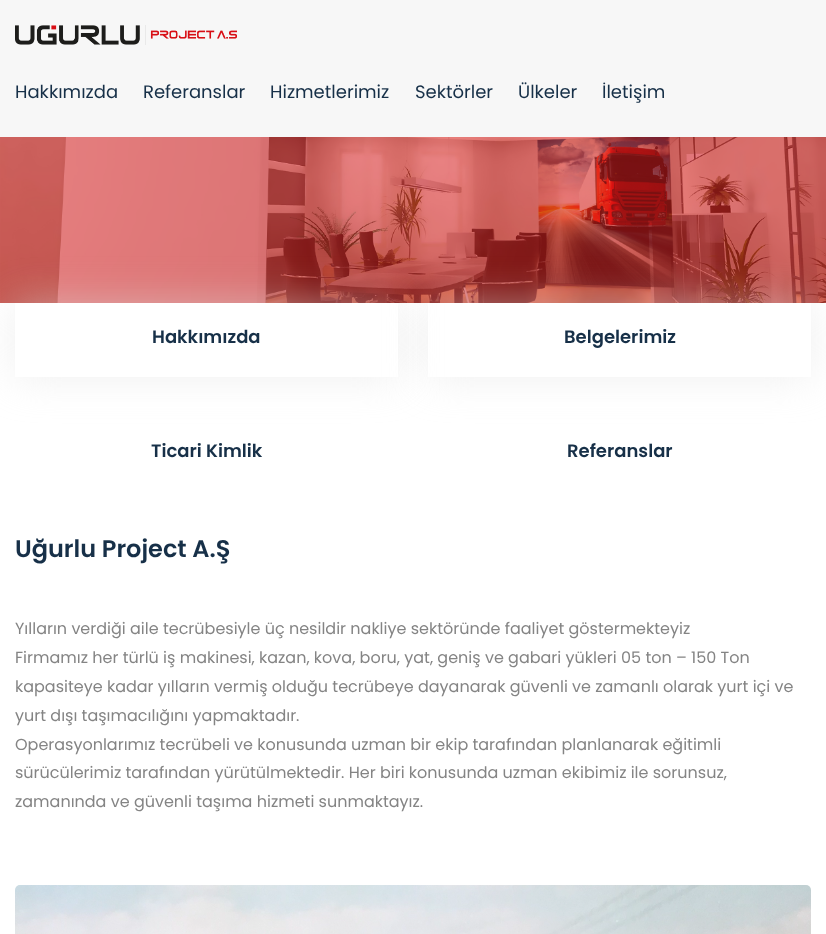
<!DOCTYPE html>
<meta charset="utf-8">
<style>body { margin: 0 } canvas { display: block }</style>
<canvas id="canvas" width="826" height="934"></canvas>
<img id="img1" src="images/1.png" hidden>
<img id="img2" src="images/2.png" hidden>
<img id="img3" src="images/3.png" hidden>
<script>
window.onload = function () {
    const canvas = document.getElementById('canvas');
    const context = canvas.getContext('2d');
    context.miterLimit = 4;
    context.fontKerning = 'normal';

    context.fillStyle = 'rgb(255, 255, 255)';
    context.fillRect(0, 0, 826, 934);
    context.fillStyle = 'rgb(247, 247, 247)';
    context.fillRect(0, 0, 826, 137);
    context.drawImage(document.getElementById('img1'), 15, 25, 222, 20);
    context.drawImage(document.getElementById('img2'), 0, 137, 826, 166);
    context.save();
    context.beginPath();
    context.moveTo(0, 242);
    context.lineTo(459, 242);
    context.lineTo(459, 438);
    context.lineTo(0, 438);
    context.closePath();
    context.moveTo(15, 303);
    context.lineTo(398, 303);
    context.lineTo(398, 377);
    context.lineTo(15, 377);
    context.closePath();
    context.clip('evenodd');
    context.fillStyle = 'rgba(224, 224, 224, 0.5)';
    context.filter = 'blur(20px)';
    context.beginPath();
    context.rect(15, 303, 383, 74);
    context.fill();
    context.filter = 'none';
    context.restore();
    context.save();
    context.beginPath();
    context.moveTo(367, 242);
    context.lineTo(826, 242);
    context.lineTo(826, 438);
    context.lineTo(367, 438);
    context.closePath();
    context.moveTo(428, 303);
    context.lineTo(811, 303);
    context.lineTo(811, 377);
    context.lineTo(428, 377);
    context.closePath();
    context.clip('evenodd');
    context.fillStyle = 'rgba(224, 224, 224, 0.5)';
    context.filter = 'blur(20px)';
    context.beginPath();
    context.rect(428, 303, 383, 74);
    context.fill();
    context.filter = 'none';
    context.restore();
    context.drawImage(document.getElementById('img3'), 15, 885, 796, 49);
    context.font = '18px Poppins';
    context.fillStyle = 'rgb(23, 48, 72)';
    context.fillText('Hakkımızda', 15, 98);
    context.fillText('Referanslar', 143, 98);
    context.fillText('Hizmetlerimiz', 270, 98);
    context.fillText('Sektörler', 415, 98);
    context.fillText('Ülkeler', 518, 98);
    context.fillText('İletişim', 602, 98);
    context.font = '600 18px Poppins';
    context.fillText('Hakkımızda', 152, 343);
    context.fillText('Belgelerimiz', 564, 343);
    context.fillText('Ticari Kimlik', 151, 457);
    context.fillText('Referanslar', 567, 457);
    context.font = '600 24px Poppins';
    context.fillText('Uğurlu Project A.Ş', 15, 557);
    context.font = '16px Poppins';
    context.fillStyle = 'rgb(132, 132, 132)';
    context.fillText('Yılların verdiği aile tecrübesiyle üç nesildir nakliye sektöründe faaliyet göstermekteyiz', 15, 634);
    context.fillText('Firmamız her türlü iş makinesi, kazan, kova, boru, yat, geniş ve gabari yükleri 05 ton – 150 Ton', 15, 663);
    context.fillText('kapasiteye kadar yılların vermiş olduğu tecrübeye dayanarak güvenli ve zamanlı olarak yurt içi ve', 15, 692);
    context.fillText('yurt dışı taşımacılığını yapmaktadır.', 15, 721);
    context.fillText('Operasyonlarımız tecrübeli ve konusunda uzman bir ekip tarafından planlanarak eğitimli', 15, 750);
    context.fillText('sürücülerimiz tarafından yürütülmektedir. Her biri konusunda uzman ekibimiz ile sorunsuz,', 15, 778);
    context.fillText('zamanında ve güvenli taşıma hizmeti sunmaktayız.', 15, 807);
};
</script>
